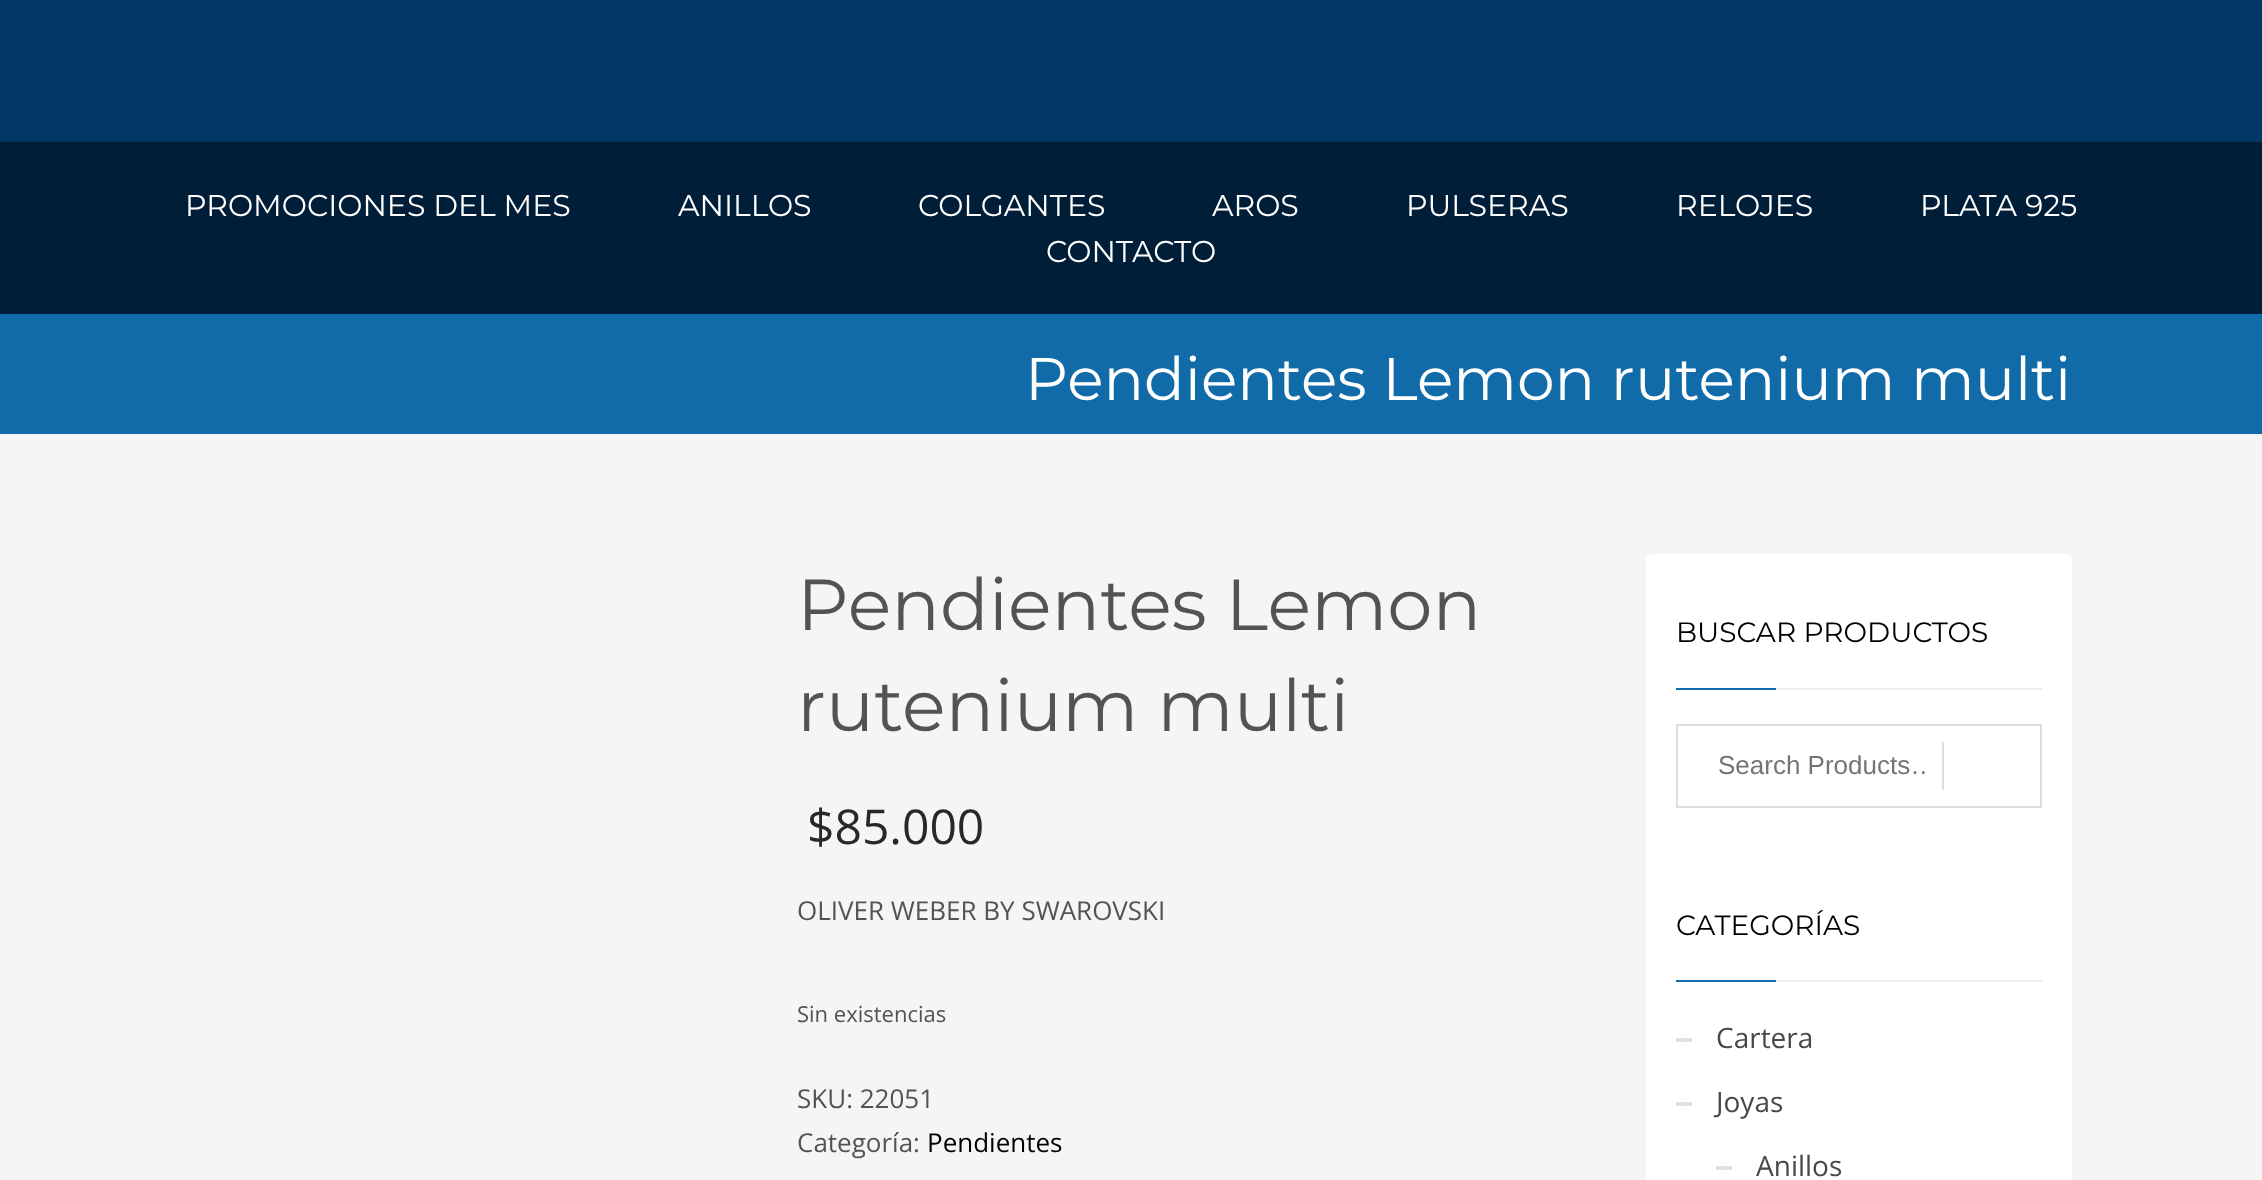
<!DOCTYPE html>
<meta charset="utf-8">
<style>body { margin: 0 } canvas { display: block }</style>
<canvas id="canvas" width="2262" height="1180"></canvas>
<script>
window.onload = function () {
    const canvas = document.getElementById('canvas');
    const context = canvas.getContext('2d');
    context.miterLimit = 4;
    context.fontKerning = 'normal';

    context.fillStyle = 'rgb(245, 245, 245)';
    context.fillRect(0, 0, 2262, 1180);
    context.fillStyle = 'rgb(0, 55, 101)';
    context.fillRect(0, 0, 2262, 142);
    context.fillStyle = 'rgb(0, 30, 55)';
    context.fillRect(0, 142, 2262, 172);
    context.fillStyle = 'rgb(16, 107, 168)';
    context.fillRect(0, 314, 2262, 120);
    context.fillStyle = 'rgb(255, 255, 255)';
    context.beginPath();
    context.roundRect(1646, 554, 426, 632, 6);
    context.fill();
    context.fillStyle = 'rgb(16, 107, 168)';
    context.fillRect(1676, 688, 100, 2);
    context.fillStyle = 'rgb(236, 236, 236)';
    context.fillRect(1776, 688, 266, 2);
    context.strokeStyle = 'rgb(221, 221, 221)';
    context.lineWidth = 2;
    context.strokeRect(1677, 725, 364, 82);
    context.fillStyle = 'rgb(221, 221, 221)';
    context.fillRect(1942, 742, 2, 48);
    context.fillStyle = 'rgb(16, 107, 168)';
    context.fillRect(1676, 980, 100, 2);
    context.fillStyle = 'rgb(236, 236, 236)';
    context.fillRect(1776, 980, 266, 2);
    context.fillStyle = 'rgb(225, 225, 225)';
    context.fillRect(1676, 1038, 16, 4);
    context.fillRect(1676, 1102, 16, 4);
    context.fillRect(1716, 1166, 16, 4);
    context.font = '30px Montserrat';
    context.fillStyle = 'rgb(255, 255, 255)';
    context.fillText('PROMOCIONES DEL MES', 185, 216);
    context.fillText('ANILLOS', 678, 216);
    context.fillText('COLGANTES', 918, 216);
    context.fillText('AROS', 1212, 216);
    context.fillText('PULSERAS', 1406, 216);
    context.fillText('RELOJES', 1676, 216);
    context.fillText('PLATA 925', 1920, 216);
    context.fillText('CONTACTO', 1046, 262);
    context.font = '60px Montserrat';
    context.fillText('Pendientes Lemon rutenium multi', 1025, 400);
    context.font = '72px Montserrat';
    context.fillStyle = 'rgb(83, 83, 83)';
    context.fillText('Pendientes Lemon', 797, 630);
    context.fillText('rutenium multi', 797, 731);
    context.font = '48px Open Sans';
    context.fillStyle = 'rgb(40, 40, 40)';
    context.fillText('$85.000', 807, 844);
    context.font = '26px Open Sans';
    context.fillStyle = 'rgb(83, 83, 83)';
    context.fillText('OLIVER WEBER BY SWAROVSKI', 797, 920);
    context.font = '22px Open Sans';
    context.fillText('Sin existencias', 797, 1022);
    context.font = '26px Open Sans';
    context.fillText('SKU: 22051', 797, 1108);
    context.fillText('Categoría:', 797, 1152);
    context.fillStyle = 'rgb(0, 0, 0)';
    context.fillText('Pendientes', 927, 1152);
    context.font = '28px Montserrat';
    context.fillText('BUSCAR PRODUCTOS', 1676, 642);
    context.save();
    context.beginPath();
    context.rect(1718, 750, 210, 30);
    context.clip();
    context.font = '26px Liberation Sans';
    context.fillStyle = 'rgb(117, 117, 117)';
    context.fillText('Search Products…', 1718, 774);
    context.restore();
    context.fillText('CATEGORÍAS', 1676, 935);
    context.font = '28px Open Sans';
    context.fillStyle = 'rgb(72, 72, 72)';
    context.fillText('Cartera', 1716, 1048);
    context.fillText('Joyas', 1716, 1112);
    context.fillText('Anillos', 1756, 1176);
};
</script>
